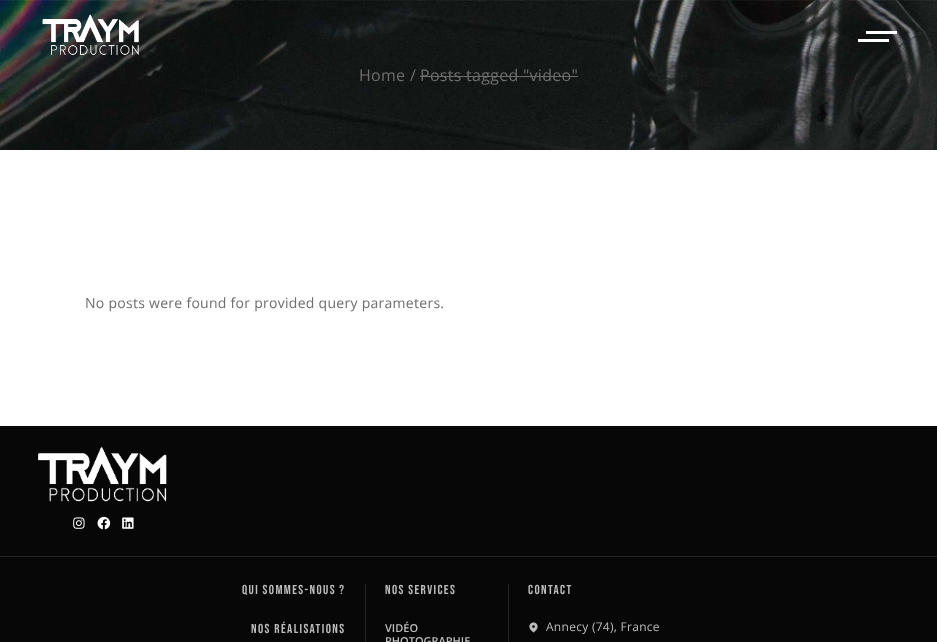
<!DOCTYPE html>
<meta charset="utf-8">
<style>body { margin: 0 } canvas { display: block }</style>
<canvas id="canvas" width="937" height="642"></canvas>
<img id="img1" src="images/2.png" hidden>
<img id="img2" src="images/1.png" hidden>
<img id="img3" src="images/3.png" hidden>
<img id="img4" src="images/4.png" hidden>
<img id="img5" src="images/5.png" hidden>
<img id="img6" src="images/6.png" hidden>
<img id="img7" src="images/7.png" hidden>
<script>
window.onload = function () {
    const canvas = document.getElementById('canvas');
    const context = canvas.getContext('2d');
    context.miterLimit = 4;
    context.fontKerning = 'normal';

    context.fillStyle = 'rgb(255, 255, 255)';
    context.fillRect(0, 0, 937, 642);
    context.drawImage(document.getElementById('img1'), 0, 0, 937, 150);
    context.drawImage(document.getElementById('img2'), 42, 14, 97, 42);
    context.beginPath();
    context.moveTo(866, 34);
    context.lineTo(866, 31);
    context.lineTo(897, 31);
    context.lineTo(897, 34);
    context.closePath();
    context.moveTo(889, 42);
    context.lineTo(858, 42);
    context.lineTo(858, 39);
    context.lineTo(889, 39);
    context.closePath();
    context.fill('evenodd');
    context.fillStyle = 'rgb(109, 109, 109)';
    context.fillRect(420, 76, 158, 1);
    context.fillStyle = 'rgb(7, 7, 7)';
    context.fillRect(0, 426, 937, 216);
    context.drawImage(document.getElementById('img3'), 38, 446, 129, 56);
    context.drawImage(document.getElementById('img4'), 73, 517, 12, 12);
    context.drawImage(document.getElementById('img5'), 97, 516, 14, 14);
    context.drawImage(document.getElementById('img6'), 122, 517, 12, 12);
    context.fillStyle = 'rgb(36, 36, 36)';
    context.fillRect(0, 556, 937, 1);
    context.fillRect(365, 584, 1, 58);
    context.fillRect(508, 584, 1, 58);
    context.drawImage(document.getElementById('img7'), 529, 622, 9, 11);
    context.letterSpacing = '0.28px';
    context.font = '16px Open Sans';
    context.fillStyle = 'rgb(109, 109, 109)';
    context.fillText('Home', 359, 81);
    context.fillText('/', 410, 81);
    context.fillText('Posts tagged "video"', 420, 81);
    context.font = '14px Open Sans';
    context.fillText('No posts were found for provided query parameters.', 85, 308);
    context.letterSpacing = '1.4px';
    context.font = '13px Bebas Neue';
    context.fillStyle = 'rgb(189, 189, 189)';
    context.fillText('Qui sommes-nous ?', 242, 594);
    context.fillText('Nos réalisations', 251, 633);
    context.fillText('Nos services', 385, 594);
    context.letterSpacing = '0px';
    context.font = '600 11px Open Sans';
    context.fillText('VIDÉO', 385, 632);
    context.fillText('PHOTOGRAPHIE', 385, 645);
    context.letterSpacing = '1.4px';
    context.font = '13px Bebas Neue';
    context.fillText('Contact', 528, 594);
    context.letterSpacing = '0.28px';
    context.font = '12px Open Sans';
    context.fillText('Annecy (74), France', 546, 631);
};
</script>
